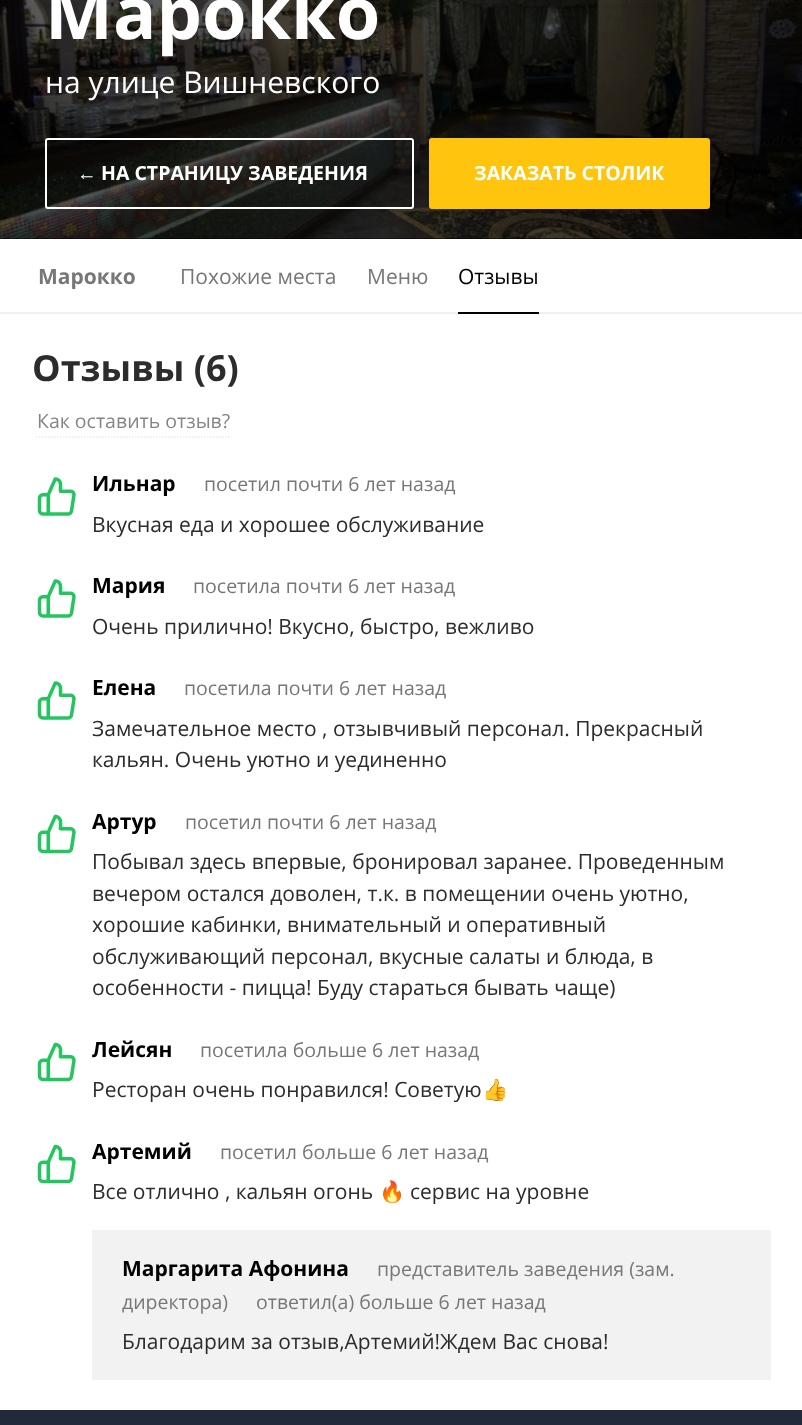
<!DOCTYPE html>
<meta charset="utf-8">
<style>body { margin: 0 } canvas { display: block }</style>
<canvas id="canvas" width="802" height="1425"></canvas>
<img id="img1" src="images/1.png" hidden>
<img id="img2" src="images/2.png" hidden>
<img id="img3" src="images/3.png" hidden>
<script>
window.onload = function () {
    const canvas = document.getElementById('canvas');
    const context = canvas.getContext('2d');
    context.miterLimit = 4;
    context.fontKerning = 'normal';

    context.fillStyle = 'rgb(255, 255, 255)';
    context.fillRect(0, 0, 802, 1425);
    context.fillStyle = 'rgb(0, 0, 0)';
    context.fillRect(0, 0, 802, 239);
    context.drawImage(document.getElementById('img1'), 0, 0, 802, 239);
    context.beginPath();
    context.roundRect(46, 139, 367, 69, 2);
    context.strokeStyle = 'rgb(255, 255, 255)';
    context.lineWidth = 2;
    context.stroke();
    context.fillStyle = 'rgb(255, 196, 13)';
    context.beginPath();
    context.roundRect(429, 138, 281, 71, 3);
    context.fill();
    context.fillStyle = 'rgb(239, 240, 240)';
    context.fillRect(0, 312, 802, 2);
    context.fillStyle = 'rgb(0, 0, 0)';
    context.fillRect(458, 312, 81, 2);
    context.beginPath();
    context.moveTo(36, 437);
    context.lineTo(229.5, 437);
    context.strokeStyle = 'rgb(234, 234, 234)';
    context.lineWidth = 1.5;
    context.setLineDash([1.5, 1.5]);
    context.stroke();
    context.drawImage(document.getElementById('img2'), 37, 477, 39, 39);
    context.drawImage(document.getElementById('img2'), 37, 579, 39, 39);
    context.drawImage(document.getElementById('img2'), 37, 681, 39, 39);
    context.drawImage(document.getElementById('img3'), 37, 814, 39, 40);
    context.drawImage(document.getElementById('img3'), 37, 1042, 39, 40);
    context.drawImage(document.getElementById('img3'), 37, 1144, 39, 40);
    context.fillStyle = 'rgb(242, 242, 242)';
    context.fillRect(92, 1230, 679, 150);
    context.fillStyle = 'rgb(33, 42, 57)';
    context.fillRect(0, 1410, 802, 15);
    context.font = 'bold 72px Open Sans';
    context.fillStyle = 'rgb(255, 255, 255)';
    context.fillText('Марокко', 45, 39);
    context.font = '30px Open Sans';
    context.fillText('на улице Вишневского', 45, 93);
    context.font = 'bold 19.5px Liberation Sans';
    context.fillText('←', 77, 180);
    context.font = 'bold 19.5px Open Sans';
    context.fillText('НА СТРАНИЦУ ЗАВЕДЕНИЯ', 101, 180);
    context.fillText('ЗАКАЗАТЬ СТОЛИК', 474, 180);
    context.font = 'bold 21px Open Sans';
    context.fillStyle = 'rgb(119, 119, 119)';
    context.fillText('Марокко', 38, 284);
    context.font = '21px Open Sans';
    context.fillText('Похожие места', 180, 284);
    context.fillText('Меню', 367, 284);
    context.fillStyle = 'rgb(0, 0, 0)';
    context.fillText('Отзывы', 458, 284);
    context.font = 'bold 36px Open Sans';
    context.fillStyle = 'rgb(44, 44, 44)';
    context.fillText('Отзывы (6)', 32, 381);
    context.font = '19.5px Open Sans';
    context.fillStyle = 'rgb(133, 133, 133)';
    context.fillText('Как оставить отзыв?', 37, 428);
    context.font = 'bold 21px Open Sans';
    context.fillStyle = 'rgb(0, 0, 0)';
    context.fillText('Ильнар', 92, 491);
    context.font = '19.5px Open Sans';
    context.fillStyle = 'rgb(119, 119, 119)';
    context.fillText('посетил почти 6 лет назад', 204, 491);
    context.font = '21px Open Sans';
    context.fillStyle = 'rgb(44, 44, 44)';
    context.fillText('Вкусная еда и хорошее обслуживание', 92, 532);
    context.font = 'bold 21px Open Sans';
    context.fillStyle = 'rgb(0, 0, 0)';
    context.fillText('Мария', 92, 593);
    context.font = '19.5px Open Sans';
    context.fillStyle = 'rgb(119, 119, 119)';
    context.fillText('посетила почти 6 лет назад', 193, 593);
    context.font = '21px Open Sans';
    context.fillStyle = 'rgb(44, 44, 44)';
    context.fillText('Очень прилично! Вкусно, быстро, вежливо', 92, 634);
    context.font = 'bold 21px Open Sans';
    context.fillStyle = 'rgb(0, 0, 0)';
    context.fillText('Елена', 92, 695);
    context.font = '19.5px Open Sans';
    context.fillStyle = 'rgb(119, 119, 119)';
    context.fillText('посетила почти 6 лет назад', 184, 695);
    context.font = '21px Open Sans';
    context.fillStyle = 'rgb(44, 44, 44)';
    context.fillText('Замечательное место , отзывчивый персонал. Прекрасный', 92, 736);
    context.fillText('кальян. Очень уютно и уединенно', 92, 767);
    context.font = 'bold 21px Open Sans';
    context.fillStyle = 'rgb(0, 0, 0)';
    context.fillText('Артур', 92, 829);
    context.font = '19.5px Open Sans';
    context.fillStyle = 'rgb(119, 119, 119)';
    context.fillText('посетил почти 6 лет назад', 185, 829);
    context.font = '21px Open Sans';
    context.fillStyle = 'rgb(44, 44, 44)';
    context.fillText('Побывал здесь впервые, бронировал заранее. Проведенным', 92, 869);
    context.fillText('вечером остался доволен, т.к. в помещении очень уютно,', 92, 901);
    context.fillText('хорошие кабинки, внимательный и оперативный', 92, 932);
    context.fillText('обслуживающий персонал, вкусные салаты и блюда, в', 92, 964);
    context.fillText('особенности - пицца! Буду стараться бывать чаще)', 92, 995);
    context.font = 'bold 21px Open Sans';
    context.fillStyle = 'rgb(0, 0, 0)';
    context.fillText('Лейсян', 92, 1057);
    context.font = '19.5px Open Sans';
    context.fillStyle = 'rgb(119, 119, 119)';
    context.fillText('посетила больше 6 лет назад', 200, 1057);
    context.font = '21px Open Sans';
    context.fillStyle = 'rgb(44, 44, 44)';
    context.fillText('Ресторан очень понравился! Советую', 92, 1097);
    context.font = '21px Noto Color Emoji';
    context.fillText('👍', 482, 1097);
    context.font = 'bold 21px Open Sans';
    context.fillStyle = 'rgb(0, 0, 0)';
    context.fillText('Артемий', 92, 1159);
    context.font = '19.5px Open Sans';
    context.fillStyle = 'rgb(119, 119, 119)';
    context.fillText('посетил больше 6 лет назад', 220, 1159);
    context.font = '21px Open Sans';
    context.fillStyle = 'rgb(44, 44, 44)';
    context.fillText('Все отлично , кальян огонь', 92, 1199);
    context.font = '21px Noto Color Emoji';
    context.fillText('🔥', 379, 1199);
    context.font = '21px Open Sans';
    context.fillText('сервис на уровне', 410, 1199);
    context.font = 'bold 21px Open Sans';
    context.fillStyle = 'rgb(0, 0, 0)';
    context.fillText('Маргарита Афонина', 122, 1276);
    context.font = '19.5px Open Sans';
    context.fillStyle = 'rgb(119, 119, 119)';
    context.fillText('представитель заведения (зам.', 377, 1276);
    context.fillText('директора)', 122, 1309);
    context.fillText('ответил(а) больше 6 лет назад', 256, 1309);
    context.font = '21px Open Sans';
    context.fillStyle = 'rgb(44, 44, 44)';
    context.fillText('Благодарим за отзыв,Артемий!Ждем Вас снова!', 122, 1349);
};
</script>
